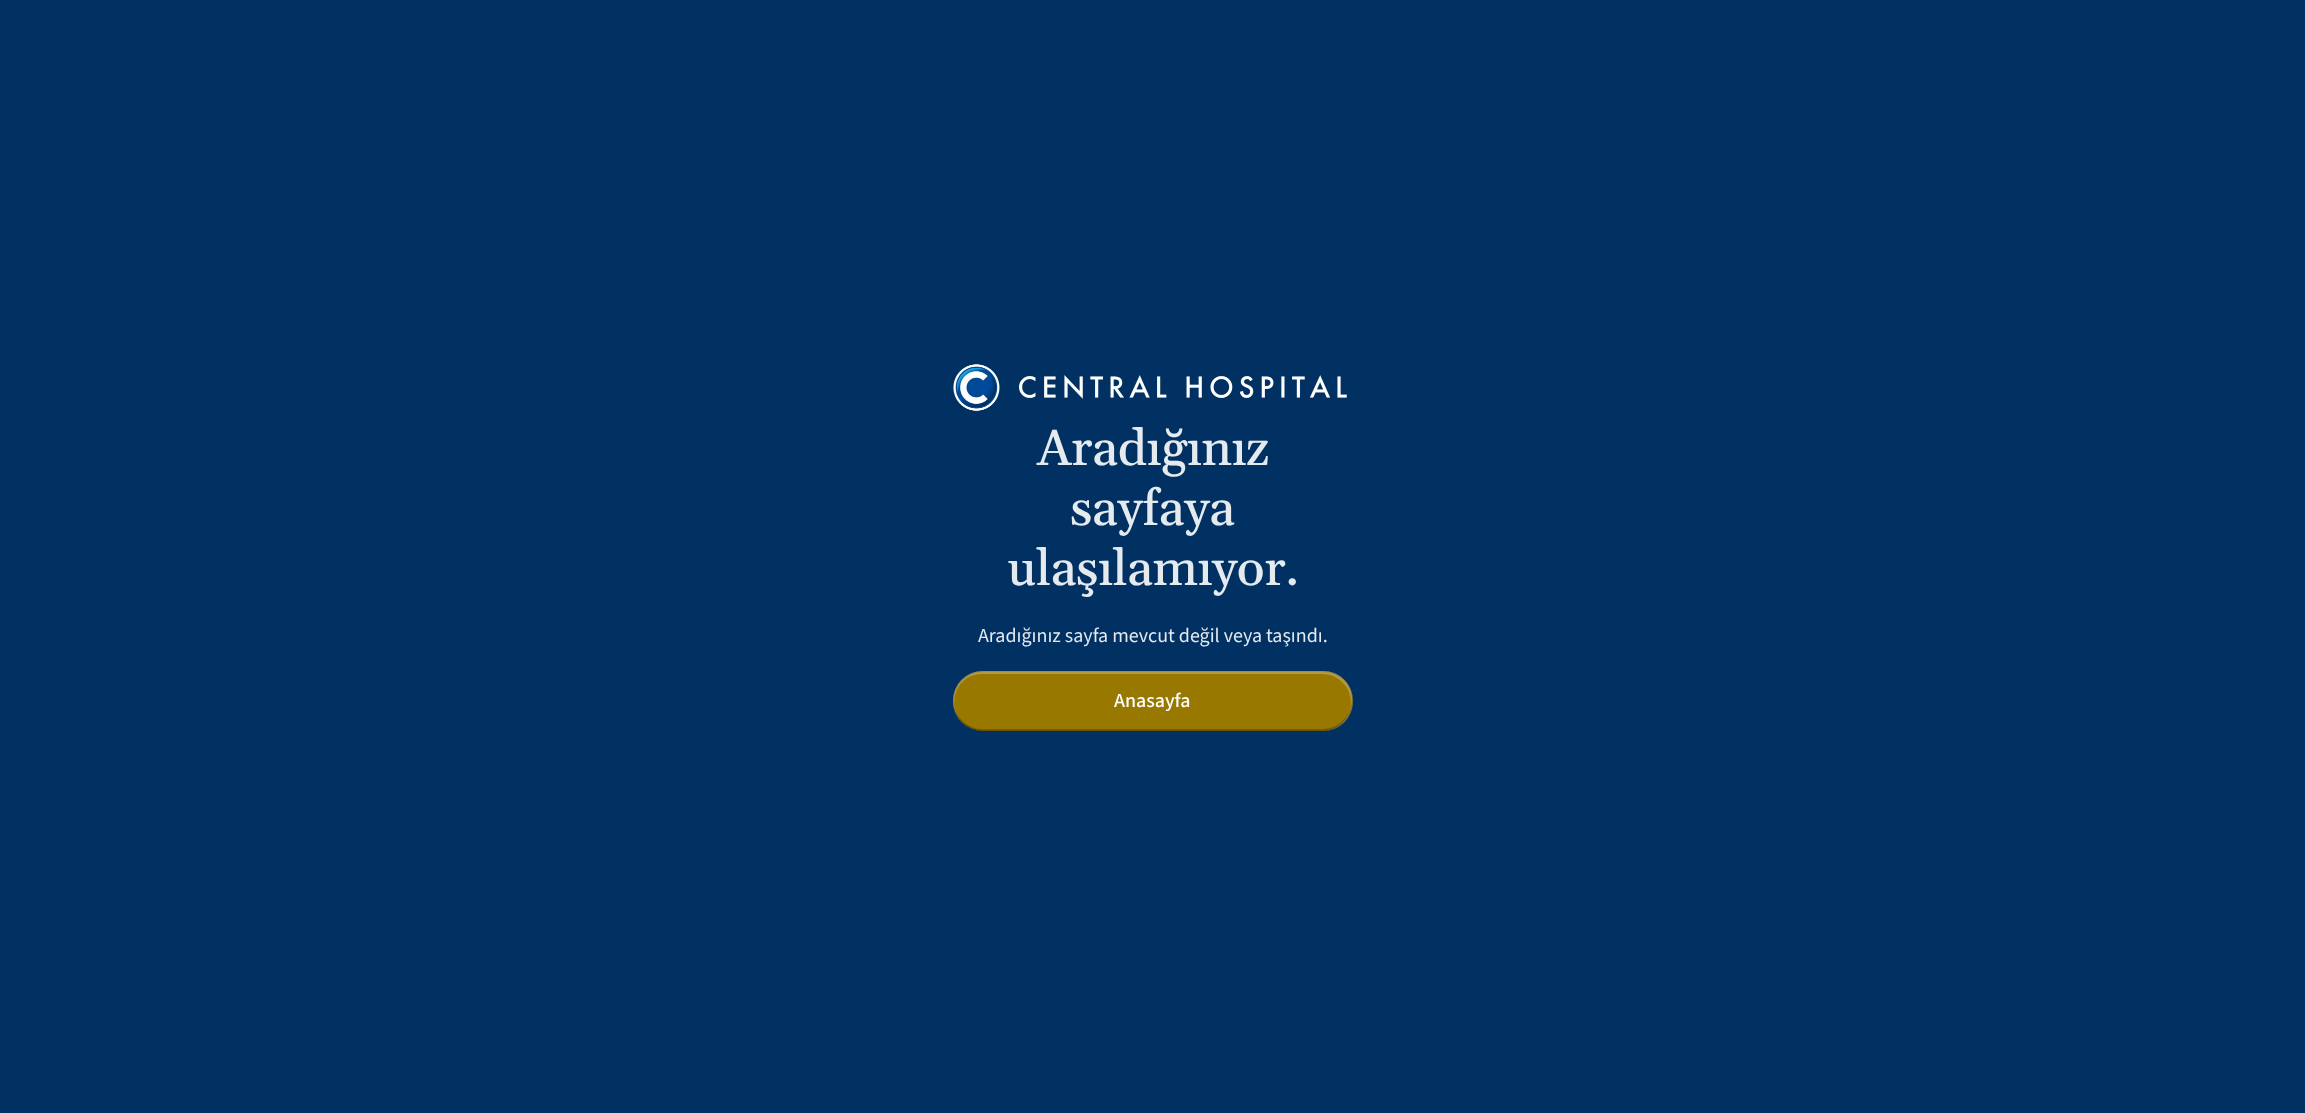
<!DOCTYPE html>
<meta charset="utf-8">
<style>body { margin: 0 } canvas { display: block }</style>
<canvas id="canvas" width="2305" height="1113"></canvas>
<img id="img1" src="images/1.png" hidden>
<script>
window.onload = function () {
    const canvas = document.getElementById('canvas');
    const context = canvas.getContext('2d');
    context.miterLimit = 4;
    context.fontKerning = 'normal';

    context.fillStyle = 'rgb(1, 49, 98)';
    context.fillRect(0, 0, 2305, 1113);
    context.drawImage(document.getElementById('img1'), 953, 364, 394, 47);
    context.fillStyle = 'rgb(153, 120, 0)';
    context.beginPath();
    context.roundRect(953, 671, 400, 60, 30);
    context.fill();
    context.beginPath();
    context.roundRect(953.5, 671.5, 399, 59, 29.5);
    context.strokeStyle = 'rgba(0, 0, 0, 0.15)';
    context.stroke();
    context.fillStyle = 'rgba(255, 255, 255, 0.25)';
    context.beginPath();
    context.moveTo(982, 674);
    context.lineTo(1322, 674);
    context.bezierCurveTo(1338, 674, 1351, 687, 1351, 702);
    context.bezierCurveTo(1351, 718, 1338, 731, 1322, 731);
    context.lineTo(1323, 731);
    context.bezierCurveTo(1340, 731, 1353, 718, 1353, 701);
    context.bezierCurveTo(1353, 684, 1340, 671, 1323, 671);
    context.lineTo(983, 671);
    context.bezierCurveTo(966, 671, 953, 684, 953, 701);
    context.bezierCurveTo(953, 712, 959, 722, 968, 727);
    context.bezierCurveTo(944, 712, 953, 674, 982, 674);
    context.closePath();
    context.fill();
    context.fillStyle = 'rgba(0, 0, 0, 0.2)';
    context.beginPath();
    context.moveTo(955, 711);
    context.bezierCurveTo(959, 723, 970, 731, 983, 731);
    context.lineTo(1323, 731);
    context.bezierCurveTo(1340, 731, 1353, 718, 1353, 701);
    context.bezierCurveTo(1353, 696, 1352, 692, 1350, 688);
    context.bezierCurveTo(1351, 691, 1352, 695, 1352, 699);
    context.bezierCurveTo(1352, 715, 1339, 729, 1322, 729);
    context.lineTo(982, 729);
    context.bezierCurveTo(970, 729, 960, 721, 955, 711);
    context.closePath();
    context.fill();
    context.letterSpacing = '-0.5px';
    context.font = '500 50px Gelasio';
    context.fillStyle = 'rgb(229, 234, 239)';
    context.fillText('Aradığınız', 1037, 465);
    context.fillText('sayfaya', 1070, 525);
    context.fillText('ulaşılamıyor.', 1007, 585);
    context.letterSpacing = '0px';
    context.font = '20px "Source Sans 3"';
    context.fillText('Aradığınız sayfa mevcut değil veya taşındı.', 978, 642);
    context.font = '500 20px "Source Sans 3"';
    context.fillStyle = 'rgb(255, 255, 255)';
    context.fillText('Anasayfa', 1114, 707);
};
</script>
